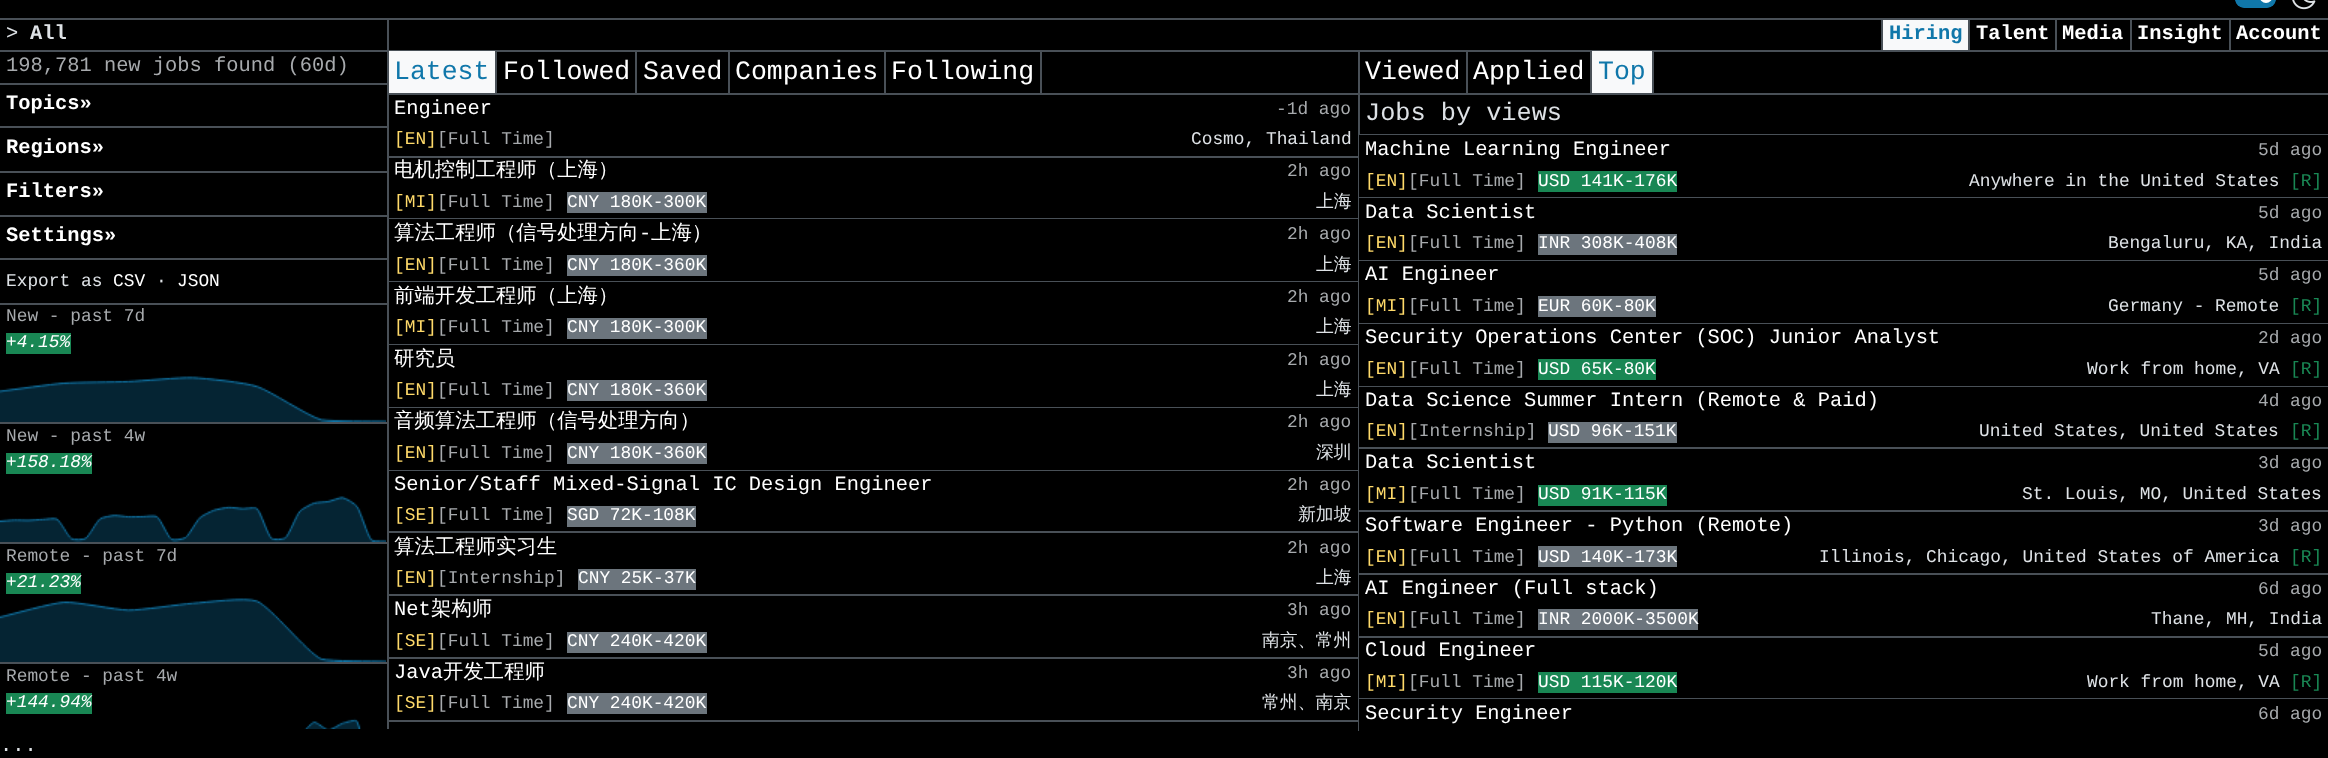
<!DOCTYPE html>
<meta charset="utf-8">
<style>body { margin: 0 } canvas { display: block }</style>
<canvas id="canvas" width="2328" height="758"></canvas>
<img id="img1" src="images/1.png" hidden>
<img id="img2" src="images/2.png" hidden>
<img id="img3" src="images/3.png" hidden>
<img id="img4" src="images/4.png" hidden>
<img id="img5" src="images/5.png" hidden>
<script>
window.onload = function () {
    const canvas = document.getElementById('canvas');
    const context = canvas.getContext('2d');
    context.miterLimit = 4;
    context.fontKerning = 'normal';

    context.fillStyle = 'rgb(0, 0, 0)';
    context.fillRect(0, 0, 2328, 758);
    context.fillStyle = 'rgb(73, 80, 87)';
    context.fillRect(0, 18, 2328, 2);
    context.fillStyle = 'rgb(16, 119, 170)';
    context.beginPath();
    context.roundRect(2235, -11, 41, 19, 10.5);
    context.fill();
    context.fillStyle = 'rgb(255, 255, 255)';
    context.beginPath();
    context.arc(2266, -3.5, 6.5, 0, 2 * Math.PI);
    context.fill();
    context.beginPath();
    context.roundRect(2236, -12, 39, 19, 9.5);
    context.strokeStyle = 'rgb(16, 119, 170)';
    context.lineWidth = 2;
    context.stroke();
    context.drawImage(document.getElementById('img1'), 2292, 0, 24, 10);
    context.fillStyle = 'rgb(73, 80, 87)';
    context.fillRect(387, 20, 2, 709);
    context.fillRect(0, 50, 387, 2);
    context.fillRect(0, 83, 387, 2);
    context.fillRect(0, 126, 387, 2);
    context.fillRect(0, 171, 387, 2);
    context.fillRect(0, 215, 387, 2);
    context.fillRect(0, 258, 387, 2);
    context.fillRect(0, 303, 387, 2);
    context.fillStyle = 'rgb(25, 135, 84)';
    context.fillRect(6, 333, 65, 21);
    context.fillStyle = 'rgb(73, 80, 87)';
    context.fillRect(0, 422, 387, 2);
    context.drawImage(document.getElementById('img2'), 0, 376, 386, 46);
    context.fillStyle = 'rgb(25, 135, 84)';
    context.fillRect(6, 453, 86, 21);
    context.fillStyle = 'rgb(73, 80, 87)';
    context.fillRect(0, 542, 387, 2);
    context.drawImage(document.getElementById('img3'), 0, 496, 386, 46);
    context.fillStyle = 'rgb(25, 135, 84)';
    context.fillRect(6, 573, 75, 21);
    context.fillStyle = 'rgb(73, 80, 87)';
    context.fillRect(0, 662, 387, 2);
    context.drawImage(document.getElementById('img4'), 0, 598, 386, 64);
    context.fillStyle = 'rgb(25, 135, 84)';
    context.fillRect(6, 693, 86, 21);
    context.drawImage(document.getElementById('img5'), 304, 718, 57, 11);
    context.fillStyle = 'rgb(73, 80, 87)';
    context.fillRect(389, 50, 1939, 2);
    context.fillStyle = 'rgb(248, 249, 250)';
    context.fillRect(1883, 20, 85, 30);
    context.fillStyle = 'rgb(73, 80, 87)';
    context.fillRect(1881, 20, 2, 30);
    context.fillRect(1968, 20, 2, 30);
    context.fillRect(2055, 20, 2, 30);
    context.fillRect(2130, 20, 2, 30);
    context.fillRect(2229, 20, 2, 30);
    context.fillRect(1358, 51, 2, 680);
    context.fillRect(389, 93, 969, 2);
    context.fillStyle = 'rgb(248, 249, 250)';
    context.fillRect(389, 51, 106, 42);
    context.fillStyle = 'rgb(73, 80, 87)';
    context.fillRect(495, 51, 2, 42);
    context.fillRect(635, 51, 2, 42);
    context.fillRect(728, 51, 2, 42);
    context.fillRect(884, 51, 2, 42);
    context.fillRect(1040, 51, 2, 42);
    context.fillRect(389, 156, 969, 2);
    context.fillRect(389, 218, 969, 1);
    context.fillStyle = 'rgb(108, 117, 125)';
    context.fillRect(567, 192, 140, 21);
    context.fillStyle = 'rgb(73, 80, 87)';
    context.fillRect(389, 281, 969, 1);
    context.fillStyle = 'rgb(108, 117, 125)';
    context.fillRect(567, 255, 140, 21);
    context.fillStyle = 'rgb(73, 80, 87)';
    context.fillRect(389, 344, 969, 1);
    context.fillStyle = 'rgb(108, 117, 125)';
    context.fillRect(567, 318, 140, 21);
    context.fillStyle = 'rgb(73, 80, 87)';
    context.fillRect(389, 407, 969, 1);
    context.fillStyle = 'rgb(108, 117, 125)';
    context.fillRect(567, 380, 140, 21);
    context.fillStyle = 'rgb(73, 80, 87)';
    context.fillRect(389, 470, 969, 1);
    context.fillStyle = 'rgb(108, 117, 125)';
    context.fillRect(567, 443, 140, 21);
    context.fillStyle = 'rgb(73, 80, 87)';
    context.fillRect(389, 531, 969, 2);
    context.fillStyle = 'rgb(108, 117, 125)';
    context.fillRect(567, 506, 129, 21);
    context.fillStyle = 'rgb(73, 80, 87)';
    context.fillRect(389, 594, 969, 2);
    context.fillStyle = 'rgb(108, 117, 125)';
    context.fillRect(578, 569, 118, 21);
    context.fillStyle = 'rgb(73, 80, 87)';
    context.fillRect(389, 657, 969, 2);
    context.fillStyle = 'rgb(108, 117, 125)';
    context.fillRect(567, 632, 140, 21);
    context.fillStyle = 'rgb(73, 80, 87)';
    context.fillRect(389, 720, 969, 2);
    context.fillStyle = 'rgb(108, 117, 125)';
    context.fillRect(567, 693, 140, 21);
    context.fillStyle = 'rgb(73, 80, 87)';
    context.fillRect(1359, 93, 969, 2);
    context.fillRect(1466, 51, 2, 42);
    context.fillRect(1590, 51, 2, 42);
    context.fillStyle = 'rgb(248, 249, 250)';
    context.fillRect(1592, 51, 60, 42);
    context.fillStyle = 'rgb(73, 80, 87)';
    context.fillRect(1652, 51, 2, 42);
    context.fillRect(1359, 134, 969, 1);
    context.fillStyle = 'rgb(0, 0, 0)';
    context.fillRect(1359, 135, 1, 62);
    context.fillStyle = 'rgb(73, 80, 87)';
    context.fillRect(1359, 197, 969, 1);
    context.fillStyle = 'rgb(25, 135, 84)';
    context.fillRect(1538, 171, 139, 21);
    context.fillStyle = 'rgb(0, 0, 0)';
    context.fillRect(1359, 198, 1, 62);
    context.fillStyle = 'rgb(73, 80, 87)';
    context.fillRect(1359, 260, 969, 1);
    context.fillStyle = 'rgb(108, 117, 125)';
    context.fillRect(1538, 234, 139, 21);
    context.fillStyle = 'rgb(0, 0, 0)';
    context.fillRect(1359, 261, 1, 62);
    context.fillStyle = 'rgb(73, 80, 87)';
    context.fillRect(1359, 323, 969, 1);
    context.fillStyle = 'rgb(108, 117, 125)';
    context.fillRect(1538, 296, 118, 21);
    context.fillStyle = 'rgb(0, 0, 0)';
    context.fillRect(1359, 324, 1, 62);
    context.fillStyle = 'rgb(73, 80, 87)';
    context.fillRect(1359, 386, 969, 1);
    context.fillStyle = 'rgb(25, 135, 84)';
    context.fillRect(1538, 359, 118, 21);
    context.fillStyle = 'rgb(0, 0, 0)';
    context.fillRect(1359, 387, 1, 60);
    context.fillStyle = 'rgb(73, 80, 87)';
    context.fillRect(1359, 447, 969, 2);
    context.fillStyle = 'rgb(108, 117, 125)';
    context.fillRect(1548, 422, 129, 21);
    context.fillStyle = 'rgb(0, 0, 0)';
    context.fillRect(1359, 449, 1, 61);
    context.fillStyle = 'rgb(73, 80, 87)';
    context.fillRect(1359, 510, 969, 2);
    context.fillStyle = 'rgb(25, 135, 84)';
    context.fillRect(1538, 485, 129, 21);
    context.fillStyle = 'rgb(0, 0, 0)';
    context.fillRect(1359, 512, 1, 61);
    context.fillStyle = 'rgb(73, 80, 87)';
    context.fillRect(1359, 573, 969, 2);
    context.fillStyle = 'rgb(108, 117, 125)';
    context.fillRect(1538, 546, 139, 21);
    context.fillStyle = 'rgb(0, 0, 0)';
    context.fillRect(1359, 575, 1, 61);
    context.fillStyle = 'rgb(73, 80, 87)';
    context.fillRect(1359, 636, 969, 2);
    context.fillStyle = 'rgb(108, 117, 125)';
    context.fillRect(1538, 609, 160, 21);
    context.fillStyle = 'rgb(0, 0, 0)';
    context.fillRect(1359, 638, 1, 60);
    context.fillStyle = 'rgb(73, 80, 87)';
    context.fillRect(1359, 698, 969, 1);
    context.fillStyle = 'rgb(25, 135, 84)';
    context.fillRect(1538, 672, 139, 21);
    context.fillStyle = 'rgb(0, 0, 0)';
    context.fillRect(1359, 699, 1, 32);
    context.font = '20.4px Liberation Mono';
    context.fillStyle = 'rgb(222, 226, 230)';
    context.fillText('>', 6, 39);
    context.font = 'bold 20.4px Liberation Mono';
    context.fillText('All', 30, 39);
    context.font = '20.4px Liberation Mono';
    context.fillStyle = 'rgb(167, 170, 173)';
    context.fillText('198,781 new jobs found (60d)', 6, 71);
    context.font = 'bold 20.4px Liberation Mono';
    context.fillStyle = 'rgb(255, 255, 255)';
    context.fillText('Topics»', 6, 109);
    context.fillText('Regions»', 6, 153);
    context.fillText('Filters»', 6, 197);
    context.fillText('Settings»', 6, 241);
    context.font = '17.85px Liberation Mono';
    context.fillStyle = 'rgb(222, 226, 230)';
    context.fillText('Export as', 6, 286);
    context.fillStyle = 'rgb(255, 255, 255)';
    context.fillText('CSV', 113, 286);
    context.fillStyle = 'rgb(222, 226, 230)';
    context.fillText('·', 156, 286);
    context.fillStyle = 'rgb(255, 255, 255)';
    context.fillText('JSON', 177, 286);
    context.fillStyle = 'rgb(167, 170, 173)';
    context.fillText('New - past 7d', 6, 321);
    context.font = 'italic 17.85px Liberation Mono';
    context.fillStyle = 'rgb(255, 255, 255)';
    context.fillText('+4.15%', 6, 347);
    context.font = '17.85px Liberation Mono';
    context.fillStyle = 'rgb(167, 170, 173)';
    context.fillText('New - past 4w', 6, 441);
    context.font = 'italic 17.85px Liberation Mono';
    context.fillStyle = 'rgb(255, 255, 255)';
    context.fillText('+158.18%', 6, 467);
    context.font = '17.85px Liberation Mono';
    context.fillStyle = 'rgb(167, 170, 173)';
    context.fillText('Remote - past 7d', 6, 561);
    context.font = 'italic 17.85px Liberation Mono';
    context.fillStyle = 'rgb(255, 255, 255)';
    context.fillText('+21.23%', 6, 587);
    context.font = '17.85px Liberation Mono';
    context.fillStyle = 'rgb(167, 170, 173)';
    context.fillText('Remote - past 4w', 6, 681);
    context.font = 'italic 17.85px Liberation Mono';
    context.fillStyle = 'rgb(255, 255, 255)';
    context.fillText('+144.94%', 6, 707);
    context.font = 'bold 20.4px Liberation Mono';
    context.fillStyle = 'rgb(16, 119, 170)';
    context.fillText('Hiring', 1889, 39);
    context.fillStyle = 'rgb(255, 255, 255)';
    context.fillText('Talent', 1976, 39);
    context.fillText('Media', 2062, 39);
    context.fillText('Insight', 2137, 39);
    context.fillText('Account', 2236, 39);
    context.font = '26.5px Liberation Mono';
    context.fillStyle = 'rgb(16, 119, 170)';
    context.fillText('Latest', 394, 79);
    context.fillStyle = 'rgb(255, 255, 255)';
    context.fillText('Followed', 503, 79);
    context.fillText('Saved', 643, 79);
    context.fillText('Companies', 735, 79);
    context.fillText('Following', 891, 79);
    context.font = '20.4px Liberation Mono';
    context.fillText('Engineer', 394, 114);
    context.font = '17.85px Liberation Mono';
    context.fillStyle = 'rgb(167, 170, 173)';
    context.fillText('-1d ago', 1276, 114);
    context.fillStyle = 'rgb(255, 218, 106)';
    context.fillText('[EN]', 394, 144);
    context.fillStyle = 'rgb(167, 170, 173)';
    context.fillText('[Full Time]', 437, 144);
    context.fillStyle = 'rgb(222, 226, 230)';
    context.fillText('Cosmo, Thailand', 1191, 144);
    context.font = '500 20.4px WenQuanYi Zen Hei';
    context.fillStyle = 'rgb(255, 255, 255)';
    context.fillText('电机控制工程师（上海）', 394, 176);
    context.font = '17.85px Liberation Mono';
    context.fillStyle = 'rgb(167, 170, 173)';
    context.fillText('2h ago', 1287, 176);
    context.fillStyle = 'rgb(255, 218, 106)';
    context.fillText('[MI]', 394, 207);
    context.fillStyle = 'rgb(167, 170, 173)';
    context.fillText('[Full Time]', 437, 207);
    context.fillStyle = 'rgb(255, 255, 255)';
    context.fillText('CNY 180K-300K', 567, 207);
    context.font = '500 17.85px WenQuanYi Zen Hei';
    context.fillStyle = 'rgb(222, 226, 230)';
    context.fillText('上海', 1316, 207);
    context.font = '500 20.4px WenQuanYi Zen Hei';
    context.fillStyle = 'rgb(255, 255, 255)';
    context.fillText('算法工程师（信号处理方向', 394, 239);
    context.font = '20.4px Liberation Mono';
    context.fillText('-', 639, 239);
    context.font = '500 20.4px WenQuanYi Zen Hei';
    context.fillText('上海）', 651, 239);
    context.font = '17.85px Liberation Mono';
    context.fillStyle = 'rgb(167, 170, 173)';
    context.fillText('2h ago', 1287, 239);
    context.fillStyle = 'rgb(255, 218, 106)';
    context.fillText('[EN]', 394, 270);
    context.fillStyle = 'rgb(167, 170, 173)';
    context.fillText('[Full Time]', 437, 270);
    context.fillStyle = 'rgb(255, 255, 255)';
    context.fillText('CNY 180K-360K', 567, 270);
    context.font = '500 17.85px WenQuanYi Zen Hei';
    context.fillStyle = 'rgb(222, 226, 230)';
    context.fillText('上海', 1316, 270);
    context.font = '500 20.4px WenQuanYi Zen Hei';
    context.fillStyle = 'rgb(255, 255, 255)';
    context.fillText('前端开发工程师（上海）', 394, 302);
    context.font = '17.85px Liberation Mono';
    context.fillStyle = 'rgb(167, 170, 173)';
    context.fillText('2h ago', 1287, 302);
    context.fillStyle = 'rgb(255, 218, 106)';
    context.fillText('[MI]', 394, 332);
    context.fillStyle = 'rgb(167, 170, 173)';
    context.fillText('[Full Time]', 437, 332);
    context.fillStyle = 'rgb(255, 255, 255)';
    context.fillText('CNY 180K-300K', 567, 332);
    context.font = '500 17.85px WenQuanYi Zen Hei';
    context.fillStyle = 'rgb(222, 226, 230)';
    context.fillText('上海', 1316, 332);
    context.font = '500 20.4px WenQuanYi Zen Hei';
    context.fillStyle = 'rgb(255, 255, 255)';
    context.fillText('研究员', 394, 365);
    context.font = '17.85px Liberation Mono';
    context.fillStyle = 'rgb(167, 170, 173)';
    context.fillText('2h ago', 1287, 365);
    context.fillStyle = 'rgb(255, 218, 106)';
    context.fillText('[EN]', 394, 395);
    context.fillStyle = 'rgb(167, 170, 173)';
    context.fillText('[Full Time]', 437, 395);
    context.fillStyle = 'rgb(255, 255, 255)';
    context.fillText('CNY 180K-360K', 567, 395);
    context.font = '500 17.85px WenQuanYi Zen Hei';
    context.fillStyle = 'rgb(222, 226, 230)';
    context.fillText('上海', 1316, 395);
    context.font = '500 20.4px WenQuanYi Zen Hei';
    context.fillStyle = 'rgb(255, 255, 255)';
    context.fillText('音频算法工程师（信号处理方向）', 394, 427);
    context.font = '17.85px Liberation Mono';
    context.fillStyle = 'rgb(167, 170, 173)';
    context.fillText('2h ago', 1287, 427);
    context.fillStyle = 'rgb(255, 218, 106)';
    context.fillText('[EN]', 394, 458);
    context.fillStyle = 'rgb(167, 170, 173)';
    context.fillText('[Full Time]', 437, 458);
    context.fillStyle = 'rgb(255, 255, 255)';
    context.fillText('CNY 180K-360K', 567, 458);
    context.font = '500 17.85px WenQuanYi Zen Hei';
    context.fillStyle = 'rgb(222, 226, 230)';
    context.fillText('深圳', 1316, 458);
    context.font = '20.4px Liberation Mono';
    context.fillStyle = 'rgb(255, 255, 255)';
    context.fillText('Senior/Staff Mixed-Signal IC Design Engineer', 394, 490);
    context.font = '17.85px Liberation Mono';
    context.fillStyle = 'rgb(167, 170, 173)';
    context.fillText('2h ago', 1287, 490);
    context.fillStyle = 'rgb(255, 218, 106)';
    context.fillText('[SE]', 394, 520);
    context.fillStyle = 'rgb(167, 170, 173)';
    context.fillText('[Full Time]', 437, 520);
    context.fillStyle = 'rgb(255, 255, 255)';
    context.fillText('SGD 72K-108K', 567, 520);
    context.font = '500 17.85px WenQuanYi Zen Hei';
    context.fillStyle = 'rgb(222, 226, 230)';
    context.fillText('新加坡', 1298, 520);
    context.font = '500 20.4px WenQuanYi Zen Hei';
    context.fillStyle = 'rgb(255, 255, 255)';
    context.fillText('算法工程师实习生', 394, 553);
    context.font = '17.85px Liberation Mono';
    context.fillStyle = 'rgb(167, 170, 173)';
    context.fillText('2h ago', 1287, 553);
    context.fillStyle = 'rgb(255, 218, 106)';
    context.fillText('[EN]', 394, 583);
    context.fillStyle = 'rgb(167, 170, 173)';
    context.fillText('[Internship]', 437, 583);
    context.fillStyle = 'rgb(255, 255, 255)';
    context.fillText('CNY 25K-37K', 578, 583);
    context.font = '500 17.85px WenQuanYi Zen Hei';
    context.fillStyle = 'rgb(222, 226, 230)';
    context.fillText('上海', 1316, 583);
    context.font = '20.4px Liberation Mono';
    context.fillStyle = 'rgb(255, 255, 255)';
    context.fillText('Net', 394, 615);
    context.font = '500 20.4px WenQuanYi Zen Hei';
    context.fillText('架构师', 431, 615);
    context.font = '17.85px Liberation Mono';
    context.fillStyle = 'rgb(167, 170, 173)';
    context.fillText('3h ago', 1287, 615);
    context.fillStyle = 'rgb(255, 218, 106)';
    context.fillText('[SE]', 394, 646);
    context.fillStyle = 'rgb(167, 170, 173)';
    context.fillText('[Full Time]', 437, 646);
    context.fillStyle = 'rgb(255, 255, 255)';
    context.fillText('CNY 240K-420K', 567, 646);
    context.font = '500 17.85px WenQuanYi Zen Hei';
    context.fillStyle = 'rgb(222, 226, 230)';
    context.fillText('南京、常州', 1262, 646);
    context.font = '20.4px Liberation Mono';
    context.fillStyle = 'rgb(255, 255, 255)';
    context.fillText('Java', 394, 678);
    context.font = '500 20.4px WenQuanYi Zen Hei';
    context.fillText('开发工程师', 443, 678);
    context.font = '17.85px Liberation Mono';
    context.fillStyle = 'rgb(167, 170, 173)';
    context.fillText('3h ago', 1287, 678);
    context.fillStyle = 'rgb(255, 218, 106)';
    context.fillText('[SE]', 394, 708);
    context.fillStyle = 'rgb(167, 170, 173)';
    context.fillText('[Full Time]', 437, 708);
    context.fillStyle = 'rgb(255, 255, 255)';
    context.fillText('CNY 240K-420K', 567, 708);
    context.font = '500 17.85px WenQuanYi Zen Hei';
    context.fillStyle = 'rgb(222, 226, 230)';
    context.fillText('常州、南京', 1262, 708);
    context.font = '26.5px Liberation Mono';
    context.fillStyle = 'rgb(255, 255, 255)';
    context.fillText('Viewed', 1365, 79);
    context.fillText('Applied', 1473, 79);
    context.fillStyle = 'rgb(16, 119, 170)';
    context.fillText('Top', 1598, 79);
    context.font = '25.25px Liberation Mono';
    context.fillStyle = 'rgb(222, 226, 230)';
    context.fillText('Jobs by views', 1365, 120);
    context.font = '20.4px Liberation Mono';
    context.fillStyle = 'rgb(255, 255, 255)';
    context.fillText('Machine Learning Engineer', 1365, 155);
    context.font = '17.85px Liberation Mono';
    context.fillStyle = 'rgb(167, 170, 173)';
    context.fillText('5d ago', 2258, 155);
    context.fillStyle = 'rgb(255, 218, 106)';
    context.fillText('[EN]', 1365, 186);
    context.fillStyle = 'rgb(167, 170, 173)';
    context.fillText('[Full Time]', 1408, 186);
    context.fillStyle = 'rgb(255, 255, 255)';
    context.fillText('USD 141K-176K', 1538, 186);
    context.fillStyle = 'rgb(222, 226, 230)';
    context.fillText('Anywhere in the United States', 1969, 186);
    context.fillStyle = 'rgb(25, 135, 84)';
    context.fillText('[R]', 2290, 186);
    context.font = '20.4px Liberation Mono';
    context.fillStyle = 'rgb(255, 255, 255)';
    context.fillText('Data Scientist', 1365, 218);
    context.font = '17.85px Liberation Mono';
    context.fillStyle = 'rgb(167, 170, 173)';
    context.fillText('5d ago', 2258, 218);
    context.fillStyle = 'rgb(255, 218, 106)';
    context.fillText('[EN]', 1365, 248);
    context.fillStyle = 'rgb(167, 170, 173)';
    context.fillText('[Full Time]', 1408, 248);
    context.fillStyle = 'rgb(255, 255, 255)';
    context.fillText('INR 308K-408K', 1538, 248);
    context.fillStyle = 'rgb(222, 226, 230)';
    context.fillText('Bengaluru, KA, India', 2108, 248);
    context.font = '20.4px Liberation Mono';
    context.fillStyle = 'rgb(255, 255, 255)';
    context.fillText('AI Engineer', 1365, 280);
    context.font = '17.85px Liberation Mono';
    context.fillStyle = 'rgb(167, 170, 173)';
    context.fillText('5d ago', 2258, 280);
    context.fillStyle = 'rgb(255, 218, 106)';
    context.fillText('[MI]', 1365, 311);
    context.fillStyle = 'rgb(167, 170, 173)';
    context.fillText('[Full Time]', 1408, 311);
    context.fillStyle = 'rgb(255, 255, 255)';
    context.fillText('EUR 60K-80K', 1538, 311);
    context.fillStyle = 'rgb(222, 226, 230)';
    context.fillText('Germany - Remote', 2108, 311);
    context.fillStyle = 'rgb(25, 135, 84)';
    context.fillText('[R]', 2290, 311);
    context.font = '20.4px Liberation Mono';
    context.fillStyle = 'rgb(255, 255, 255)';
    context.fillText('Security Operations Center (SOC) Junior Analyst', 1365, 343);
    context.font = '17.85px Liberation Mono';
    context.fillStyle = 'rgb(167, 170, 173)';
    context.fillText('2d ago', 2258, 343);
    context.fillStyle = 'rgb(255, 218, 106)';
    context.fillText('[EN]', 1365, 374);
    context.fillStyle = 'rgb(167, 170, 173)';
    context.fillText('[Full Time]', 1408, 374);
    context.fillStyle = 'rgb(255, 255, 255)';
    context.fillText('USD 65K-80K', 1538, 374);
    context.fillStyle = 'rgb(222, 226, 230)';
    context.fillText('Work from home, VA', 2087, 374);
    context.fillStyle = 'rgb(25, 135, 84)';
    context.fillText('[R]', 2290, 374);
    context.font = '20.4px Liberation Mono';
    context.fillStyle = 'rgb(255, 255, 255)';
    context.fillText('Data Science Summer Intern (Remote & Paid)', 1365, 406);
    context.font = '17.85px Liberation Mono';
    context.fillStyle = 'rgb(167, 170, 173)';
    context.fillText('4d ago', 2258, 406);
    context.fillStyle = 'rgb(255, 218, 106)';
    context.fillText('[EN]', 1365, 436);
    context.fillStyle = 'rgb(167, 170, 173)';
    context.fillText('[Internship]', 1408, 436);
    context.fillStyle = 'rgb(255, 255, 255)';
    context.fillText('USD 96K-151K', 1548, 436);
    context.fillStyle = 'rgb(222, 226, 230)';
    context.fillText('United States, United States', 1979, 436);
    context.fillStyle = 'rgb(25, 135, 84)';
    context.fillText('[R]', 2290, 436);
    context.font = '20.4px Liberation Mono';
    context.fillStyle = 'rgb(255, 255, 255)';
    context.fillText('Data Scientist', 1365, 468);
    context.font = '17.85px Liberation Mono';
    context.fillStyle = 'rgb(167, 170, 173)';
    context.fillText('3d ago', 2258, 468);
    context.fillStyle = 'rgb(255, 218, 106)';
    context.fillText('[MI]', 1365, 499);
    context.fillStyle = 'rgb(167, 170, 173)';
    context.fillText('[Full Time]', 1408, 499);
    context.fillStyle = 'rgb(255, 255, 255)';
    context.fillText('USD 91K-115K', 1538, 499);
    context.fillStyle = 'rgb(222, 226, 230)';
    context.fillText('St. Louis, MO, United States', 2022, 499);
    context.font = '20.4px Liberation Mono';
    context.fillStyle = 'rgb(255, 255, 255)';
    context.fillText('Software Engineer - Python (Remote)', 1365, 531);
    context.font = '17.85px Liberation Mono';
    context.fillStyle = 'rgb(167, 170, 173)';
    context.fillText('3d ago', 2258, 531);
    context.fillStyle = 'rgb(255, 218, 106)';
    context.fillText('[EN]', 1365, 562);
    context.fillStyle = 'rgb(167, 170, 173)';
    context.fillText('[Full Time]', 1408, 562);
    context.fillStyle = 'rgb(255, 255, 255)';
    context.fillText('USD 140K-173K', 1538, 562);
    context.fillStyle = 'rgb(222, 226, 230)';
    context.fillText('Illinois, Chicago, United States of America', 1819, 562);
    context.fillStyle = 'rgb(25, 135, 84)';
    context.fillText('[R]', 2290, 562);
    context.font = '20.4px Liberation Mono';
    context.fillStyle = 'rgb(255, 255, 255)';
    context.fillText('AI Engineer (Full stack)', 1365, 594);
    context.font = '17.85px Liberation Mono';
    context.fillStyle = 'rgb(167, 170, 173)';
    context.fillText('6d ago', 2258, 594);
    context.fillStyle = 'rgb(255, 218, 106)';
    context.fillText('[EN]', 1365, 624);
    context.fillStyle = 'rgb(167, 170, 173)';
    context.fillText('[Full Time]', 1408, 624);
    context.fillStyle = 'rgb(255, 255, 255)';
    context.fillText('INR 2000K-3500K', 1538, 624);
    context.fillStyle = 'rgb(222, 226, 230)';
    context.fillText('Thane, MH, India', 2151, 624);
    context.font = '20.4px Liberation Mono';
    context.fillStyle = 'rgb(255, 255, 255)';
    context.fillText('Cloud Engineer', 1365, 656);
    context.font = '17.85px Liberation Mono';
    context.fillStyle = 'rgb(167, 170, 173)';
    context.fillText('5d ago', 2258, 656);
    context.fillStyle = 'rgb(255, 218, 106)';
    context.fillText('[MI]', 1365, 687);
    context.fillStyle = 'rgb(167, 170, 173)';
    context.fillText('[Full Time]', 1408, 687);
    context.fillStyle = 'rgb(255, 255, 255)';
    context.fillText('USD 115K-120K', 1538, 687);
    context.fillStyle = 'rgb(222, 226, 230)';
    context.fillText('Work from home, VA', 2087, 687);
    context.fillStyle = 'rgb(25, 135, 84)';
    context.fillText('[R]', 2290, 687);
    context.font = '20.4px Liberation Mono';
    context.fillStyle = 'rgb(255, 255, 255)';
    context.fillText('Security Engineer', 1365, 719);
    context.font = '17.85px Liberation Mono';
    context.fillStyle = 'rgb(167, 170, 173)';
    context.fillText('6d ago', 2258, 719);
    context.font = '20.4px Liberation Mono';
    context.fillStyle = 'rgb(222, 226, 230)';
    context.fillText('...', 0, 751);
};
</script>
